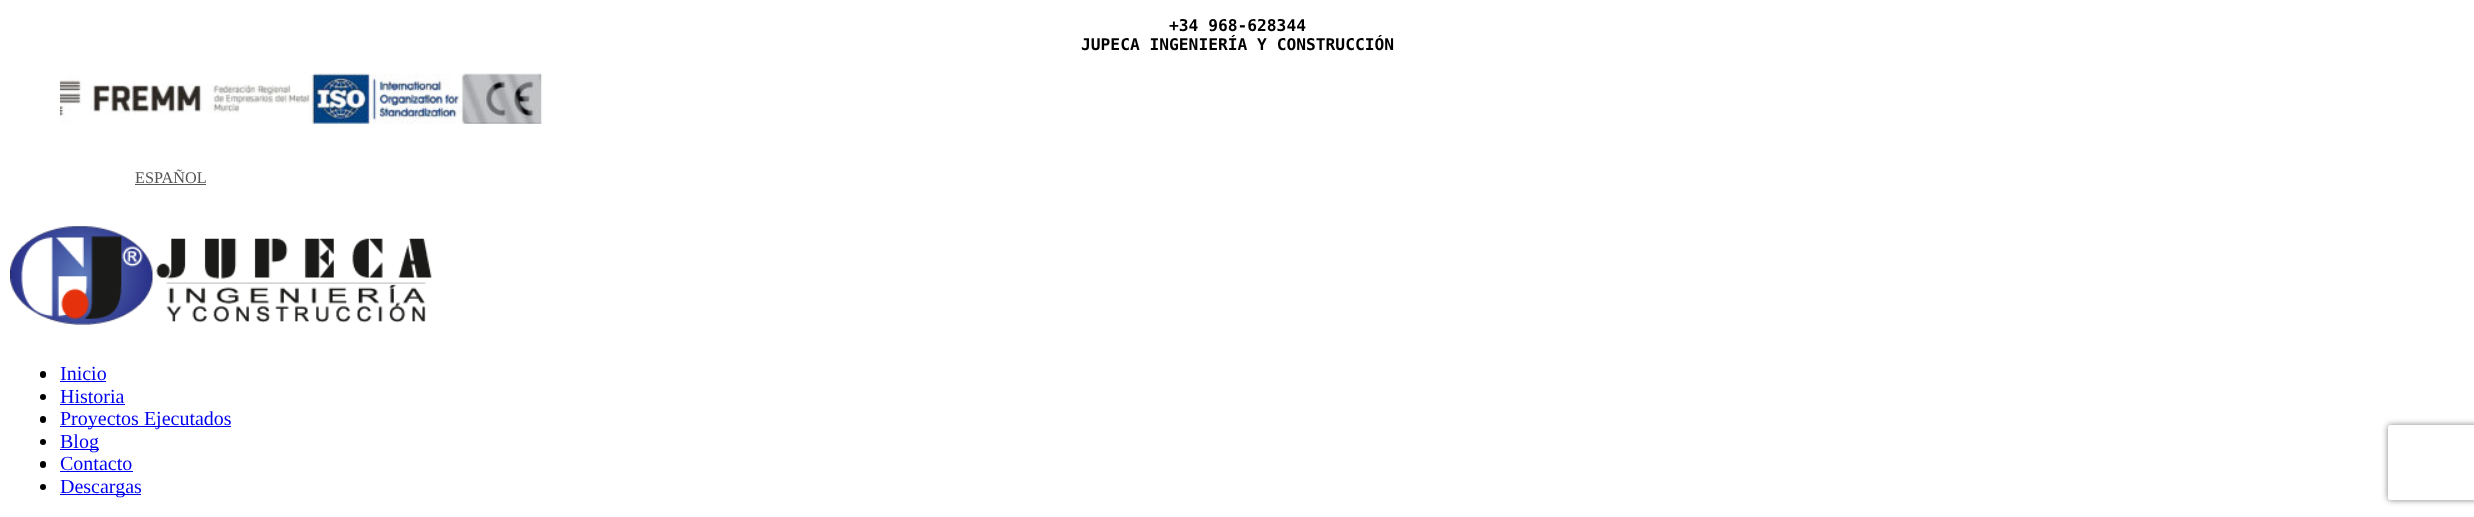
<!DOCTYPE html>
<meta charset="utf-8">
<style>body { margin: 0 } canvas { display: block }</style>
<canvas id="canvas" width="2474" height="517"></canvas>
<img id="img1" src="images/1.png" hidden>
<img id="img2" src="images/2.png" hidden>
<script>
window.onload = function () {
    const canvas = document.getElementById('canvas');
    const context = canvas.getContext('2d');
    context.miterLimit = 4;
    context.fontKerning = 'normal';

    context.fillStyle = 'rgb(255, 255, 255)';
    context.fillRect(0, 0, 2474, 517);
    context.drawImage(document.getElementById('img1'), 60, 73, 482, 51);
    context.fillStyle = 'rgb(85, 85, 85)';
    context.fillRect(135, 184, 71, 1);
    context.drawImage(document.getElementById('img2'), 10, 226, 422, 99);
    context.fillStyle = 'rgb(0, 0, 0)';
    context.beginPath();
    context.roundRect(40, 371, 6, 7, 3);
    context.fill();
    context.fillStyle = 'rgb(0, 0, 238)';
    context.fillRect(60, 381, 46, 1);
    context.fillStyle = 'rgb(0, 0, 0)';
    context.beginPath();
    context.arc(43, 397, 3, 0, 2 * Math.PI);
    context.fill();
    context.fillStyle = 'rgb(0, 0, 238)';
    context.fillRect(60, 404, 65, 1);
    context.fillStyle = 'rgb(0, 0, 0)';
    context.beginPath();
    context.roundRect(40, 416, 6, 7, 3);
    context.fill();
    context.fillStyle = 'rgb(0, 0, 238)';
    context.fillRect(60, 426, 171, 1);
    context.fillStyle = 'rgb(0, 0, 0)';
    context.beginPath();
    context.arc(43, 442, 3, 0, 2 * Math.PI);
    context.fill();
    context.fillStyle = 'rgb(0, 0, 238)';
    context.fillRect(60, 449, 39, 1);
    context.fillStyle = 'rgb(0, 0, 0)';
    context.beginPath();
    context.roundRect(40, 461, 6, 7, 3);
    context.fill();
    context.fillStyle = 'rgb(0, 0, 238)';
    context.fillRect(60, 471, 73, 1);
    context.fillStyle = 'rgb(0, 0, 0)';
    context.beginPath();
    context.arc(43, 487, 3, 0, 2 * Math.PI);
    context.fill();
    context.fillStyle = 'rgb(0, 0, 238)';
    context.fillRect(60, 494, 81, 1);
    context.save();
    context.beginPath();
    context.moveTo(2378, 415);
    context.lineTo(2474, 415);
    context.lineTo(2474, 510);
    context.lineTo(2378, 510);
    context.closePath();
    context.moveTo(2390.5, 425);
    context.lineTo(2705.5, 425);
    context.bezierCurveTo(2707, 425, 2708, 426, 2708, 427.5);
    context.lineTo(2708, 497.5);
    context.bezierCurveTo(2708, 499, 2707, 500, 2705.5, 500);
    context.lineTo(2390.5, 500);
    context.bezierCurveTo(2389, 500, 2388, 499, 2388, 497.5);
    context.lineTo(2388, 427.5);
    context.bezierCurveTo(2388, 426, 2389, 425, 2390.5, 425);
    context.closePath();
    context.clip('evenodd');
    context.fillStyle = 'rgb(128, 128, 128)';
    context.filter = 'blur(3px)';
    context.beginPath();
    context.roundRect(2388, 425, 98, 75, 2.5);
    context.fill();
    context.filter = 'none';
    context.restore();
    context.font = 'bold 16.25px DejaVu Sans Mono';
    context.fillStyle = 'rgb(0, 0, 0)';
    context.fillText('+34 968-628344', 1169, 31);
    context.fillText('JUPECA INGENIERÍA Y CONSTRUCCIÓN', 1081, 50);
    context.font = '16.25px Liberation Serif';
    context.fillStyle = 'rgb(85, 85, 85)';
    context.fillText('ESPAÑOL', 135, 183);
    context.font = '20px Liberation Serif';
    context.fillStyle = 'rgb(0, 0, 238)';
    context.fillText('Inicio', 60, 380);
    context.fillText('Historia', 60, 403);
    context.fillText('Proyectos Ejecutados', 60, 425);
    context.fillText('Blog', 60, 448);
    context.fillText('Contacto', 60, 470);
    context.fillText('Descargas', 60, 493);
};
</script>
